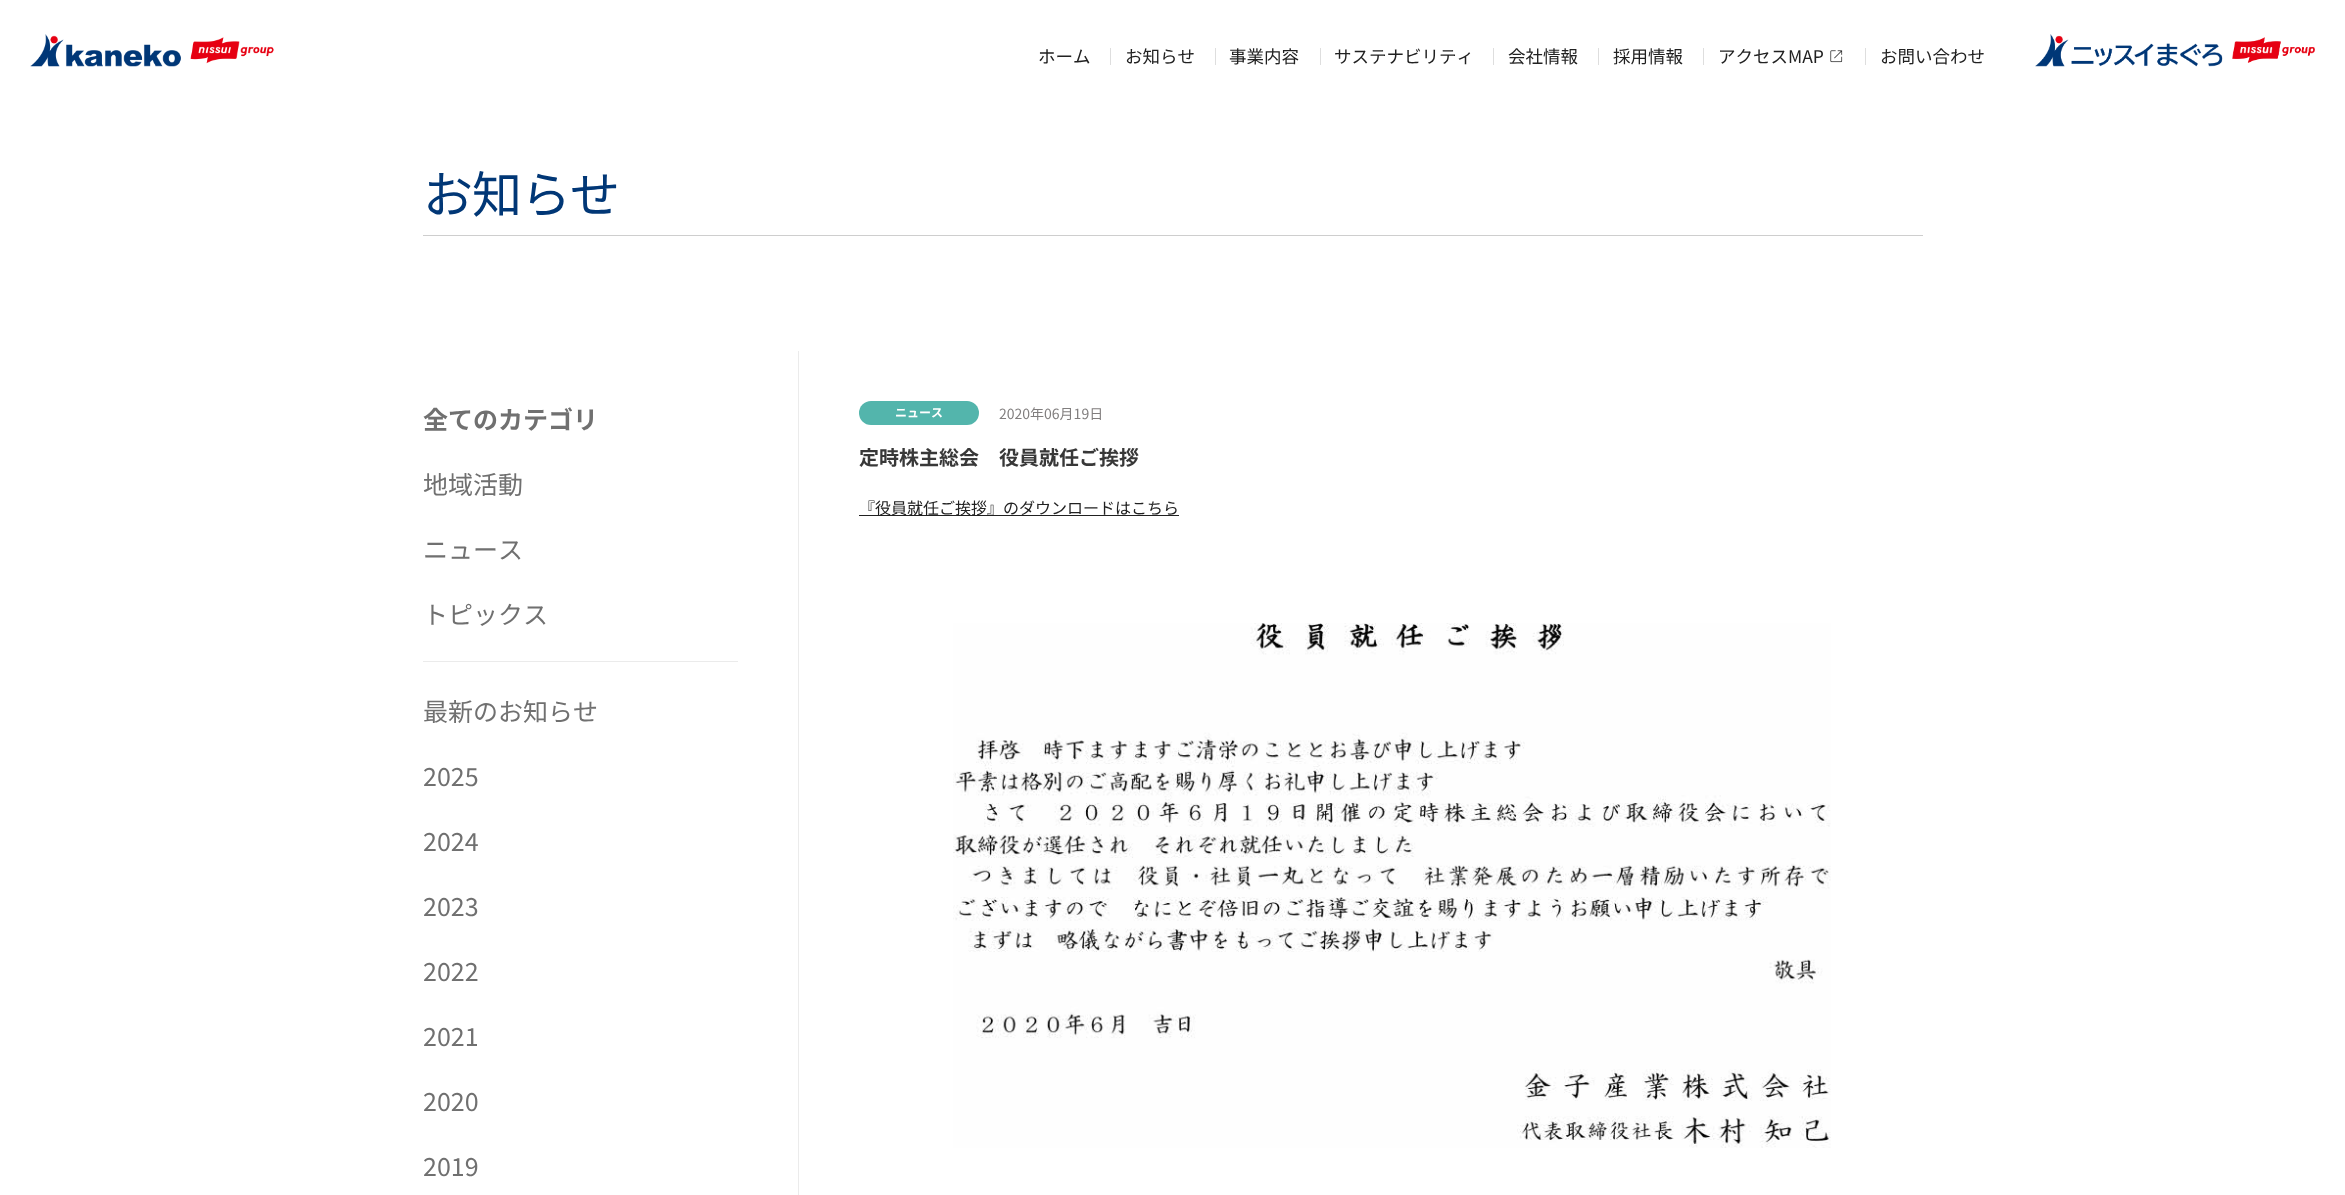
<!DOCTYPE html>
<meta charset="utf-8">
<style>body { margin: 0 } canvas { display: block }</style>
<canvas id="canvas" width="2345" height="1195"></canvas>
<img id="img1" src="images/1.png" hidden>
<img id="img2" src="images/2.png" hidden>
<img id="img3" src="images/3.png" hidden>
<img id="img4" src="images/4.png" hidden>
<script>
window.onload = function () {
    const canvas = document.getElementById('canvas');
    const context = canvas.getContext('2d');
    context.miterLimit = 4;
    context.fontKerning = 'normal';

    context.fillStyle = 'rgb(255, 255, 255)';
    context.fillRect(0, 0, 2345, 1195);
    context.drawImage(document.getElementById('img1'), 30, 34, 244, 33);
    context.fillStyle = 'rgb(222, 222, 222)';
    context.fillRect(1110, 48, 1, 17);
    context.fillRect(1215, 48, 1, 17);
    context.fillRect(1320, 48, 1, 17);
    context.fillRect(1493, 48, 1, 17);
    context.fillRect(1598, 48, 1, 17);
    context.fillRect(1703, 48, 1, 17);
    context.drawImage(document.getElementById('img2'), 1830, 50, 13, 13);
    context.fillRect(1865, 48, 1, 17);
    context.drawImage(document.getElementById('img3'), 2035, 34, 280, 33);
    context.fillStyle = 'rgb(206, 206, 206)';
    context.fillRect(423, 235, 1500, 1);
    context.fillStyle = 'rgb(235, 235, 235)';
    context.fillRect(423, 661, 315, 1);
    context.fillRect(798, 351, 1, 844);
    context.fillStyle = 'rgb(83, 181, 172)';
    context.beginPath();
    context.roundRect(859, 401, 120, 24, 12);
    context.fill();
    context.fillStyle = 'rgb(33, 33, 33)';
    context.fillRect(859, 515, 320, 1);
    context.drawImage(document.getElementById('img4'), 953, 623, 878, 525);
    context.font = '17.5px Noto Sans JP';
    context.fillText('ホーム', 1038, 63);
    context.fillText('お知らせ', 1125, 63);
    context.fillText('事業内容', 1229, 63);
    context.fillText('サステナビリティ', 1334, 63);
    context.fillText('会社情報', 1508, 63);
    context.fillText('採用情報', 1613, 63);
    context.fillText('アクセスMAP', 1718, 63);
    context.fillText('お問い合わせ', 1880, 63);
    context.letterSpacing = '-1px';
    context.font = '50px Noto Sans JP';
    context.fillStyle = 'rgb(1, 55, 118)';
    context.fillText('お知らせ', 423, 213);
    context.letterSpacing = '0px';
    context.font = 'bold 25px Noto Sans JP';
    context.fillStyle = 'rgb(112, 112, 112)';
    context.fillText('全てのカテゴリ', 423, 429);
    context.font = '25px Noto Sans JP';
    context.fillText('地域活動', 423, 494);
    context.fillText('ニュース', 423, 559);
    context.fillText('トピックス', 423, 624);
    context.fillText('最新のお知らせ', 423, 721);
    context.fillText('2025', 423, 786);
    context.fillText('2024', 423, 851);
    context.fillText('2023', 423, 916);
    context.fillText('2022', 423, 981);
    context.fillText('2021', 423, 1046);
    context.fillText('2020', 423, 1111);
    context.fillText('2019', 423, 1176);
    context.font = 'bold 12px Noto Sans JP';
    context.fillStyle = 'rgb(255, 255, 255)';
    context.fillText('ニュース', 895, 417);
    context.font = '14px Noto Sans JP';
    context.fillStyle = 'rgb(129, 126, 126)';
    context.fillText('2020年06月19日', 999, 419);
    context.font = 'bold 20px Noto Sans JP';
    context.fillStyle = 'rgb(56, 56, 56)';
    context.fillText('定時株主総会　役員就任ご挨拶', 859, 465);
    context.font = '16px Noto Sans JP';
    context.fillStyle = 'rgb(33, 33, 33)';
    context.fillText('『役員就任ご挨拶』のダウンロードはこちら', 859, 514);
};
</script>
